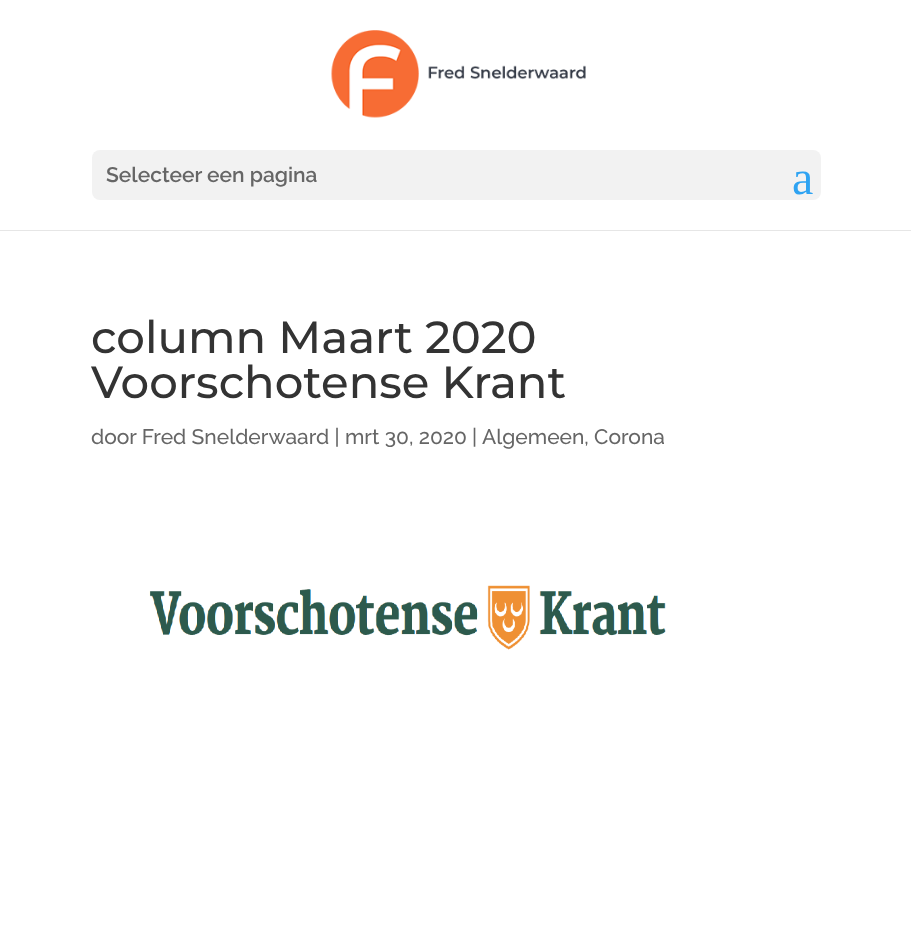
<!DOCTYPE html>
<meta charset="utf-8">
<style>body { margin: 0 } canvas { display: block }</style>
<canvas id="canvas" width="911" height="936"></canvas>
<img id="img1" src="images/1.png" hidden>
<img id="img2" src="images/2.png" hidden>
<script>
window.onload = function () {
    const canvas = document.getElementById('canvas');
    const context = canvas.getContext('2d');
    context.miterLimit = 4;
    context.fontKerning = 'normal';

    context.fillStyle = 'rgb(255, 255, 255)';
    context.fillRect(0, 0, 911, 936);
    context.fillStyle = 'rgb(230, 230, 230)';
    context.fillRect(0, 230, 911, 1);
    context.drawImage(document.getElementById('img1'), 331, 30, 255, 88);
    context.fillStyle = 'rgb(242, 242, 242)';
    context.beginPath();
    context.roundRect(92, 150, 729, 50, 8);
    context.fill();
    context.drawImage(document.getElementById('img2'), 149, 585, 517, 65);
    context.font = '600 21px Raleway';
    context.fillStyle = 'rgb(102, 102, 102)';
    context.fillText('Selecteer een pagina', 106, 182);
    context.font = '48px Liberation Serif';
    context.fillStyle = 'rgb(46, 163, 242)';
    context.fillText('a', 792, 194);
    context.font = '500 45px Montserrat';
    context.fillStyle = 'rgb(51, 51, 51)';
    context.fillText('column Maart 2020', 91, 353);
    context.fillText('Voorschotense Krant', 91, 398);
    context.font = '500 21px Raleway';
    context.fillStyle = 'rgb(102, 102, 102)';
    context.fillText('door Fred Snelderwaard | mrt 30, 2020', 91, 444);
    context.fillText('|', 472, 444);
    context.fillText('Algemeen, Corona', 482, 444);
};
</script>
